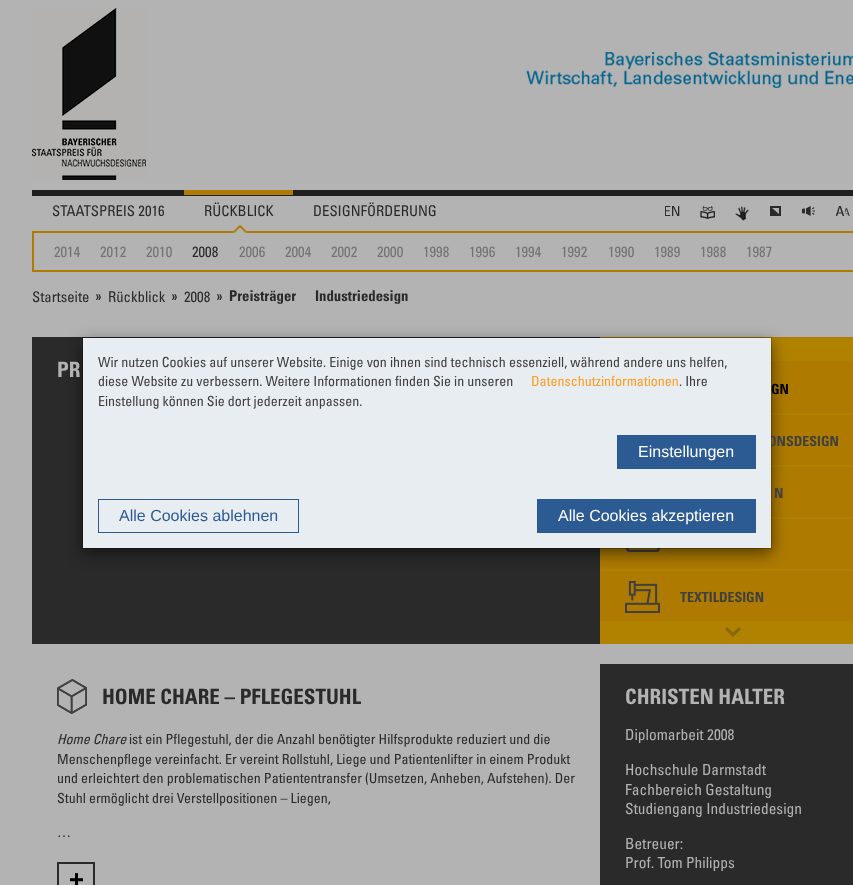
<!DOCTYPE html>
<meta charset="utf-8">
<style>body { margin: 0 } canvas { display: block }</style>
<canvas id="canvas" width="853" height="885"></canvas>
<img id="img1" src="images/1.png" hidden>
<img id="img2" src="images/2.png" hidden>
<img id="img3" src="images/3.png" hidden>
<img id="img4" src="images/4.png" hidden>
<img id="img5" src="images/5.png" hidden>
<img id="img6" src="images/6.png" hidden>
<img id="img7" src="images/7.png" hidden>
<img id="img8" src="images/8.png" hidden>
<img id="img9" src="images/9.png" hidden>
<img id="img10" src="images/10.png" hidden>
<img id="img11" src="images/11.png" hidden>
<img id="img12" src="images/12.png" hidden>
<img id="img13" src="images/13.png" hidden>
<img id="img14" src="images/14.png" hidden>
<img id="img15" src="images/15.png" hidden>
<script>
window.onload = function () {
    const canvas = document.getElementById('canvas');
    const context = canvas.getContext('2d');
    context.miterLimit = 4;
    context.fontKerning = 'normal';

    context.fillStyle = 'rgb(179, 179, 179)';
    context.fillRect(0, 0, 853, 885);
    context.drawImage(document.getElementById('img1'), 32, 8, 114, 172);
    context.drawImage(document.getElementById('img2'), 526, 52, 327, 36);
    context.fillStyle = 'rgb(31, 31, 31)';
    context.fillRect(32, 190, 821, 6);
    context.fillStyle = 'rgb(174, 123, 0)';
    context.fillRect(184, 190, 109, 5);
    context.strokeStyle = 'rgb(174, 123, 0)';
    context.lineWidth = 2;
    context.strokeRect(33, 232, 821, 39);
    context.drawImage(document.getElementById('img3'), 233, 224, 14, 9);
    context.drawImage(document.getElementById('img4'), 665, 206, 15, 10);
    context.drawImage(document.getElementById('img5'), 700, 206, 15, 13);
    context.drawImage(document.getElementById('img6'), 735, 206, 14, 15);
    context.drawImage(document.getElementById('img7'), 770, 206, 11, 10);
    context.drawImage(document.getElementById('img8'), 802, 206, 13, 10);
    context.drawImage(document.getElementById('img9'), 836, 206, 14, 10);
    context.drawImage(document.getElementById('img10'), 96, 294, 5, 6);
    context.drawImage(document.getElementById('img10'), 172, 294, 5, 6);
    context.drawImage(document.getElementById('img10'), 217, 294, 5, 6);
    context.fillStyle = 'rgb(42, 42, 42)';
    context.fillRect(32, 337, 568, 307);
    context.fillStyle = 'rgb(174, 123, 0)';
    context.fillRect(600, 337, 253, 284);
    context.fillStyle = 'rgb(176, 130, 0)';
    context.fillRect(771, 338, 82, 23);
    context.fillRect(600, 621, 253, 23);
    context.drawImage(document.getElementById('img11'), 725, 627, 16, 10);
    context.fillRect(771, 413, 82, 2);
    context.fillRect(771, 465, 82, 2);
    context.fillRect(771, 517, 82, 2);
    context.drawImage(document.getElementById('img12'), 626, 548, 34, 4);
    context.fillRect(600, 569, 253, 2);
    context.drawImage(document.getElementById('img13'), 625, 581, 35, 32);
    context.drawImage(document.getElementById('img14'), 57, 679, 30, 35);
    context.drawImage(document.getElementById('img15'), 70, 873, 13, 12);
    context.strokeStyle = 'rgb(42, 42, 42)';
    context.strokeRect(58, 863, 36, 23);
    context.fillStyle = 'rgb(42, 42, 42)';
    context.fillRect(600, 664, 253, 221);
    context.fillStyle = 'rgba(0, 0, 0, 0.5)';
    context.filter = 'blur(7.5px)';
    context.beginPath();
    context.rect(82, 342, 690, 212);
    context.fill();
    context.filter = 'none';
    context.font = '14.75px "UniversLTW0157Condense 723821"';
    context.fillStyle = 'rgb(42, 42, 42)';
    context.fillText('RÜCKBLICK', 204, 216);
    context.fillStyle = 'rgb(115, 115, 115)';
    context.fillText('2014', 54, 257);
    context.fillText('2012', 100, 257);
    context.fillText('2010', 146, 257);
    context.fillStyle = 'rgb(42, 42, 42)';
    context.fillText('2008', 192, 257);
    context.fillStyle = 'rgb(115, 115, 115)';
    context.fillText('2006', 239, 257);
    context.fillText('2004', 285, 257);
    context.fillText('2002', 331, 257);
    context.fillText('2000', 377, 257);
    context.fillText('1998', 423, 257);
    context.fillText('1996', 469, 257);
    context.fillText('1994', 515, 257);
    context.fillText('1992', 561, 257);
    context.fillText('1990', 608, 257);
    context.fillText('1989', 654, 257);
    context.fillText('1988', 700, 257);
    context.fillText('1987', 746, 257);
    context.fillStyle = 'rgb(42, 42, 42)';
    context.fillText('STAATSPREIS 2016', 52, 216);
    context.fillText('DESIGNFÖRDERUNG', 313, 216);
    context.fillText('Startseite', 32, 302);
    context.fillText('Rückblick', 108, 302);
    context.fillText('2008', 184, 302);
    context.font = 'bold 14.75px "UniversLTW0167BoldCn"';
    context.fillText('Preisträger', 229, 301);
    context.fillText('Industriedesign', 315, 301);
    context.font = 'bold 21px "UniversLTW0167BoldCn"';
    context.fillStyle = 'rgb(179, 179, 179)';
    context.fillText('PR', 57, 377);
    context.font = 'bold 14px "UniversLTW0167BoldCn"';
    context.fillStyle = 'rgb(0, 0, 0)';
    context.fillText('GN', 771, 394);
    context.fillStyle = 'rgb(64, 64, 64)';
    context.fillText('ONSDESIGN', 768, 446);
    context.fillText('N', 774, 498);
    context.fillText('TEXTILDESIGN', 680, 602);
    context.font = 'bold 21px "UniversLTW0167BoldCn"';
    context.fillStyle = 'rgb(42, 42, 42)';
    context.fillText('HOME CHARE – PFLEGESTUHL', 102, 704);
    context.font = 'italic 14px "UniversLTW0157Condense 723821"';
    context.fillText('Home Chare', 57, 744);
    context.font = '14px "UniversLTW0157Condense 723821"';
    context.fillText('ist ein Pflegestuhl, der die Anzahl benötigter Hilfsprodukte reduziert und die', 129, 744);
    context.fillText('Menschenpflege vereinfacht. Er vereint Rollstuhl, Liege und Patientenlifter in einem Produkt', 57, 764);
    context.fillText('und erleichtert den problematischen Patiententransfer (Umsetzen, Anheben, Aufstehen). Der', 57, 783);
    context.fillText('Stuhl ermöglicht drei Verstellpositionen – Liegen,', 57, 803);
    context.fillText('…', 57, 837);
    context.font = 'bold 21px "UniversLTW0167BoldCn"';
    context.fillStyle = 'rgb(179, 179, 179)';
    context.fillText('CHRISTEN HALTER', 625, 704);
    context.font = '15.4px "UniversLTW0157Condense 723821"';
    context.fillText('Diplomarbeit 2008', 625, 740);
    context.fillText('Hochschule Darmstadt', 625, 775);
    context.fillText('Fachbereich Gestaltung', 625, 795);
    context.fillText('Studiengang Industriedesign', 625, 814);
    context.fillText('Betreuer:', 625, 849);
    context.fillText('Prof. Tom Philipps', 625, 868);
    context.fillStyle = 'rgb(232, 237, 241)';
    context.fillRect(83, 338, 688, 210);
    context.strokeStyle = 'rgba(0, 0, 0, 0.2)';
    context.lineWidth = 1;
    context.strokeRect(82.5, 337.5, 689, 211);
    context.font = '14px "UniversLTW0157Condense 723821"';
    context.fillStyle = 'rgb(64, 64, 64)';
    context.fillText('Wir nutzen Cookies auf unserer Website. Einige von ihnen sind technisch essenziell, während andere uns helfen,', 98, 367);
    context.fillText('diese Website zu verbessern. Weitere Informationen finden Sie in unseren', 98, 386);
    context.fillStyle = 'rgb(255, 158, 33)';
    context.fillText('Datenschutzinformationen', 531, 386);
    context.fillStyle = 'rgb(64, 64, 64)';
    context.fillText('. Ihre', 679, 386);
    context.fillText('Einstellung können Sie dort jederzeit anpassen.', 98, 406);
    context.fillStyle = 'rgb(44, 90, 147)';
    context.fillRect(617, 435, 139, 34);
    context.font = '16px Liberation Sans';
    context.fillStyle = 'rgb(255, 255, 255)';
    context.fillText('Einstellungen', 638, 457);
    context.strokeStyle = 'rgb(44, 90, 147)';
    context.strokeRect(98.5, 499.5, 200, 33);
    context.fillStyle = 'rgb(44, 90, 147)';
    context.fillText('Alle Cookies ablehnen', 119, 521);
    context.fillRect(537, 499, 219, 34);
    context.fillStyle = 'rgb(255, 255, 255)';
    context.fillText('Alle Cookies akzeptieren', 558, 521);
};
</script>
